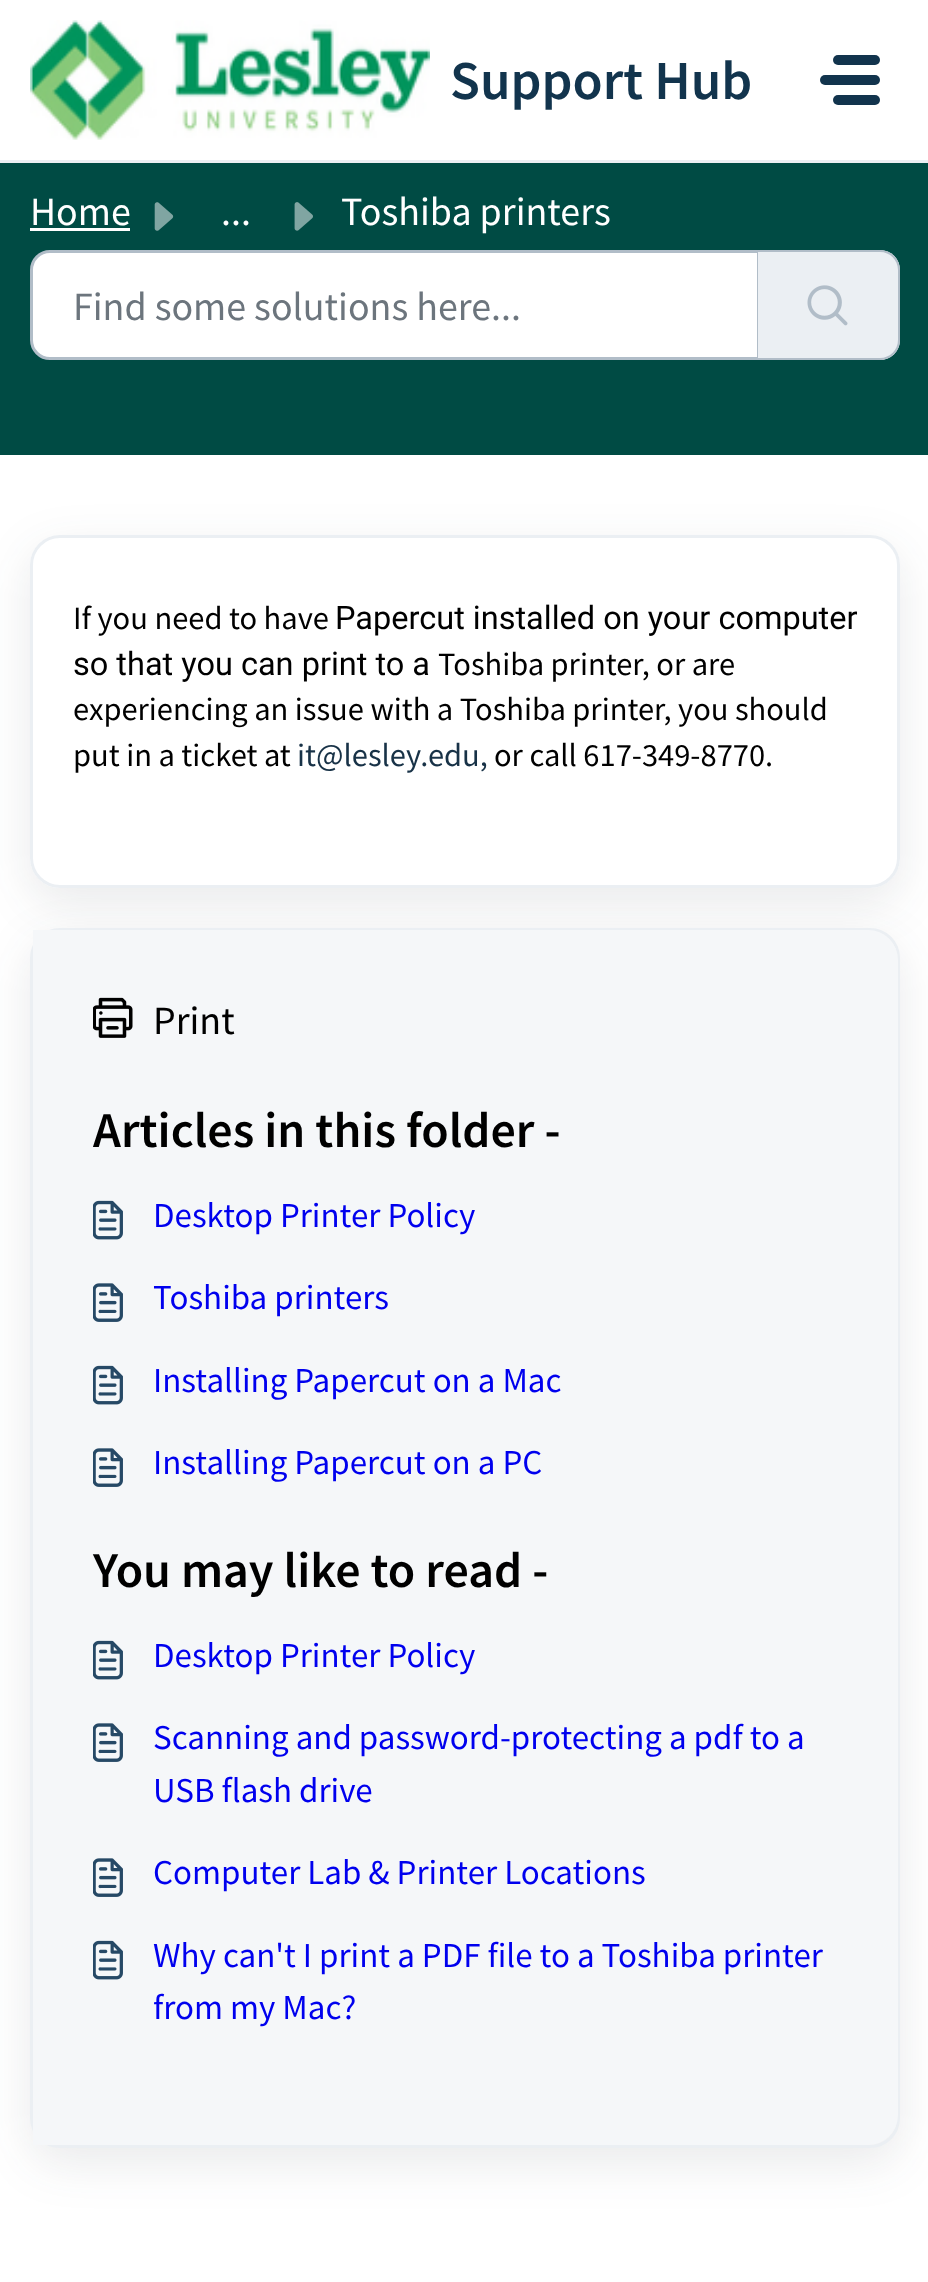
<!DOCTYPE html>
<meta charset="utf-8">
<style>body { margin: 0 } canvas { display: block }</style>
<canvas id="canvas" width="928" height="2282"></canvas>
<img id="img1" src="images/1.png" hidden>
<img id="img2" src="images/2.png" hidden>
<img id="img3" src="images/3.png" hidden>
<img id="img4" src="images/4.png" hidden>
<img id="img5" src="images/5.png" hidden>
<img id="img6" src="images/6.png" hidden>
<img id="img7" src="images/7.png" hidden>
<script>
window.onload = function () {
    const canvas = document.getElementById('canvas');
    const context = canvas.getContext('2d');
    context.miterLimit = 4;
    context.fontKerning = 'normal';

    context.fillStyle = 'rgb(255, 255, 255)';
    context.fillRect(0, 0, 928, 2282);
    context.fillStyle = 'rgb(235, 239, 243)';
    context.fillRect(0, 160, 928, 3);
    context.drawImage(document.getElementById('img1'), 30, 20, 400, 120);
    context.fillStyle = 'rgb(18, 52, 77)';
    context.beginPath();
    context.roundRect(833, 55, 47, 10, 5);
    context.fill();
    context.beginPath();
    context.roundRect(820, 75, 60, 10, 5);
    context.fill();
    context.beginPath();
    context.roundRect(833, 95, 47, 10, 5);
    context.fill();
    context.fillStyle = 'rgb(0, 75, 68)';
    context.fillRect(0, 163, 928, 292);
    context.fillStyle = 'rgb(255, 255, 255)';
    context.fillRect(30, 228, 100, 3);
    context.drawImage(document.getElementById('img2'), 154, 202, 20, 29);
    context.drawImage(document.getElementById('img3'), 294, 202, 19, 29);
    context.beginPath();
    context.roundRect(31.5, 251.5, 727, 107, [18.5, 0, 0, 18.5]);
    context.fill();
    context.strokeStyle = 'rgb(177, 189, 200)';
    context.lineWidth = 3;
    context.stroke();
    context.fillStyle = 'rgb(235, 239, 243)';
    context.beginPath();
    context.roundRect(758, 250, 142, 110, [0, 20, 20, 0]);
    context.fill();
    context.fillStyle = 'rgb(177, 189, 200)';
    context.beginPath();
    context.moveTo(758, 250);
    context.lineTo(880, 250);
    context.bezierCurveTo(891, 250, 900, 259, 900, 270);
    context.lineTo(900, 340);
    context.bezierCurveTo(900, 351, 891, 360, 880, 360);
    context.lineTo(758, 360);
    context.closePath();
    context.moveTo(758, 252);
    context.lineTo(880, 252);
    context.bezierCurveTo(890, 252, 898, 260, 898, 270);
    context.lineTo(898, 340);
    context.bezierCurveTo(898, 350, 890, 358, 880, 358);
    context.lineTo(758, 358);
    context.closePath();
    context.fill('evenodd');
    context.drawImage(document.getElementById('img4'), 807, 285, 41, 41);
    context.save();
    context.beginPath();
    context.moveTo(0, 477);
    context.lineTo(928, 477);
    context.lineTo(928, 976);
    context.lineTo(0, 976);
    context.closePath();
    context.moveTo(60, 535);
    context.lineTo(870, 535);
    context.bezierCurveTo(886.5, 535, 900, 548.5, 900, 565);
    context.lineTo(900, 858);
    context.bezierCurveTo(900, 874.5, 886.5, 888, 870, 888);
    context.lineTo(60, 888);
    context.bezierCurveTo(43.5, 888, 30, 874.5, 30, 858);
    context.lineTo(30, 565);
    context.bezierCurveTo(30, 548.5, 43.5, 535, 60, 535);
    context.closePath();
    context.clip('evenodd');
    context.fillStyle = 'rgba(39, 49, 58, 0.1)';
    context.filter = 'blur(24px)';
    context.beginPath();
    context.roundRect(30, 550, 870, 353, 30);
    context.fill();
    context.filter = 'none';
    context.restore();
    context.beginPath();
    context.roundRect(31.5, 536.5, 867, 350, 28.5);
    context.strokeStyle = 'rgb(235, 239, 243)';
    context.stroke();
    context.fillStyle = 'rgba(39, 49, 58, 0.1)';
    context.filter = 'blur(24px)';
    context.beginPath();
    context.roundRect(30, 943, 870, 1220, 30);
    context.fill();
    context.filter = 'none';
    context.beginPath();
    context.roundRect(31.5, 929.5, 867, 1217, 28.5);
    context.stroke();
    context.fillStyle = 'rgb(245, 247, 249)';
    context.beginPath();
    context.roundRect(33, 930, 865, 1215, [0, 30, 30, 0]);
    context.fill();
    context.drawImage(document.getElementById('img5'), 93, 997, 40, 41);
    context.drawImage(document.getElementById('img6'), 93, 1200, 30, 40);
    context.drawImage(document.getElementById('img7'), 93, 1283, 30, 39);
    context.drawImage(document.getElementById('img6'), 93, 1365, 30, 40);
    context.drawImage(document.getElementById('img7'), 93, 1448, 30, 39);
    context.drawImage(document.getElementById('img6'), 93, 1640, 30, 40);
    context.drawImage(document.getElementById('img7'), 93, 1723, 30, 39);
    context.drawImage(document.getElementById('img7'), 93, 1858, 30, 39);
    context.drawImage(document.getElementById('img6'), 93, 1940, 30, 40);
    context.font = '600 55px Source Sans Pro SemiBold';
    context.fillStyle = 'rgb(18, 52, 77)';
    context.fillText('Support Hub', 450, 99);
    context.font = '40px Source Sans Pro';
    context.fillStyle = 'rgb(255, 255, 255)';
    context.fillText('Home', 30, 225);
    context.fillText('...', 221, 225);
    context.fillText('Toshiba printers', 341, 225);
    context.fillStyle = 'rgb(108, 117, 125)';
    context.fillText('Find some solutions here...', 73, 320);
    context.font = '32.5px Source Sans Pro';
    context.fillStyle = 'rgb(0, 0, 0)';
    context.fillText('If you need to have', 73, 629);
    context.font = '32.5px Roboto';
    context.fillText('Papercut installed on your computer', 335, 629);
    context.fillText('so that you can print to a', 73, 675);
    context.font = '32.5px Source Sans Pro';
    context.fillText('Toshiba printer, or are', 438, 675);
    context.fillText('experiencing an issue with a Toshiba printer, you should', 73, 720);
    context.fillText('put in a ticket at', 73, 766);
    context.fillStyle = 'rgb(24, 50, 71)';
    context.fillText('it@lesley.edu,', 297, 766);
    context.fillStyle = 'rgb(0, 0, 0)';
    context.fillText('or call 617-349-8770.', 494, 766);
    context.font = '40px Source Sans Pro';
    context.fillText('Print', 153, 1034);
    context.font = '600 50px Source Sans Pro SemiBold';
    context.fillText('Articles in this folder -', 93, 1147);
    context.font = '35px Source Sans Pro';
    context.fillStyle = 'rgb(0, 0, 238)';
    context.fillText('Desktop Printer Policy', 153, 1227);
    context.fillText('Toshiba printers', 153, 1309);
    context.fillText('Installing Papercut on a Mac', 153, 1392);
    context.fillText('Installing Papercut on a PC', 153, 1474);
    context.font = '600 50px Source Sans Pro SemiBold';
    context.fillStyle = 'rgb(0, 0, 0)';
    context.fillText('You may like to read -', 93, 1587);
    context.font = '35px Source Sans Pro';
    context.fillStyle = 'rgb(0, 0, 238)';
    context.fillText('Desktop Printer Policy', 153, 1667);
    context.fillText('Scanning and password-protecting a pdf to a', 153, 1749);
    context.fillText('USB flash drive', 153, 1802);
    context.fillText('Computer Lab & Printer Locations', 153, 1884);
    context.fillText('Why can\'t I print a PDF file to a Toshiba printer', 153, 1967);
    context.fillText('from my Mac?', 153, 2019);
};
</script>
